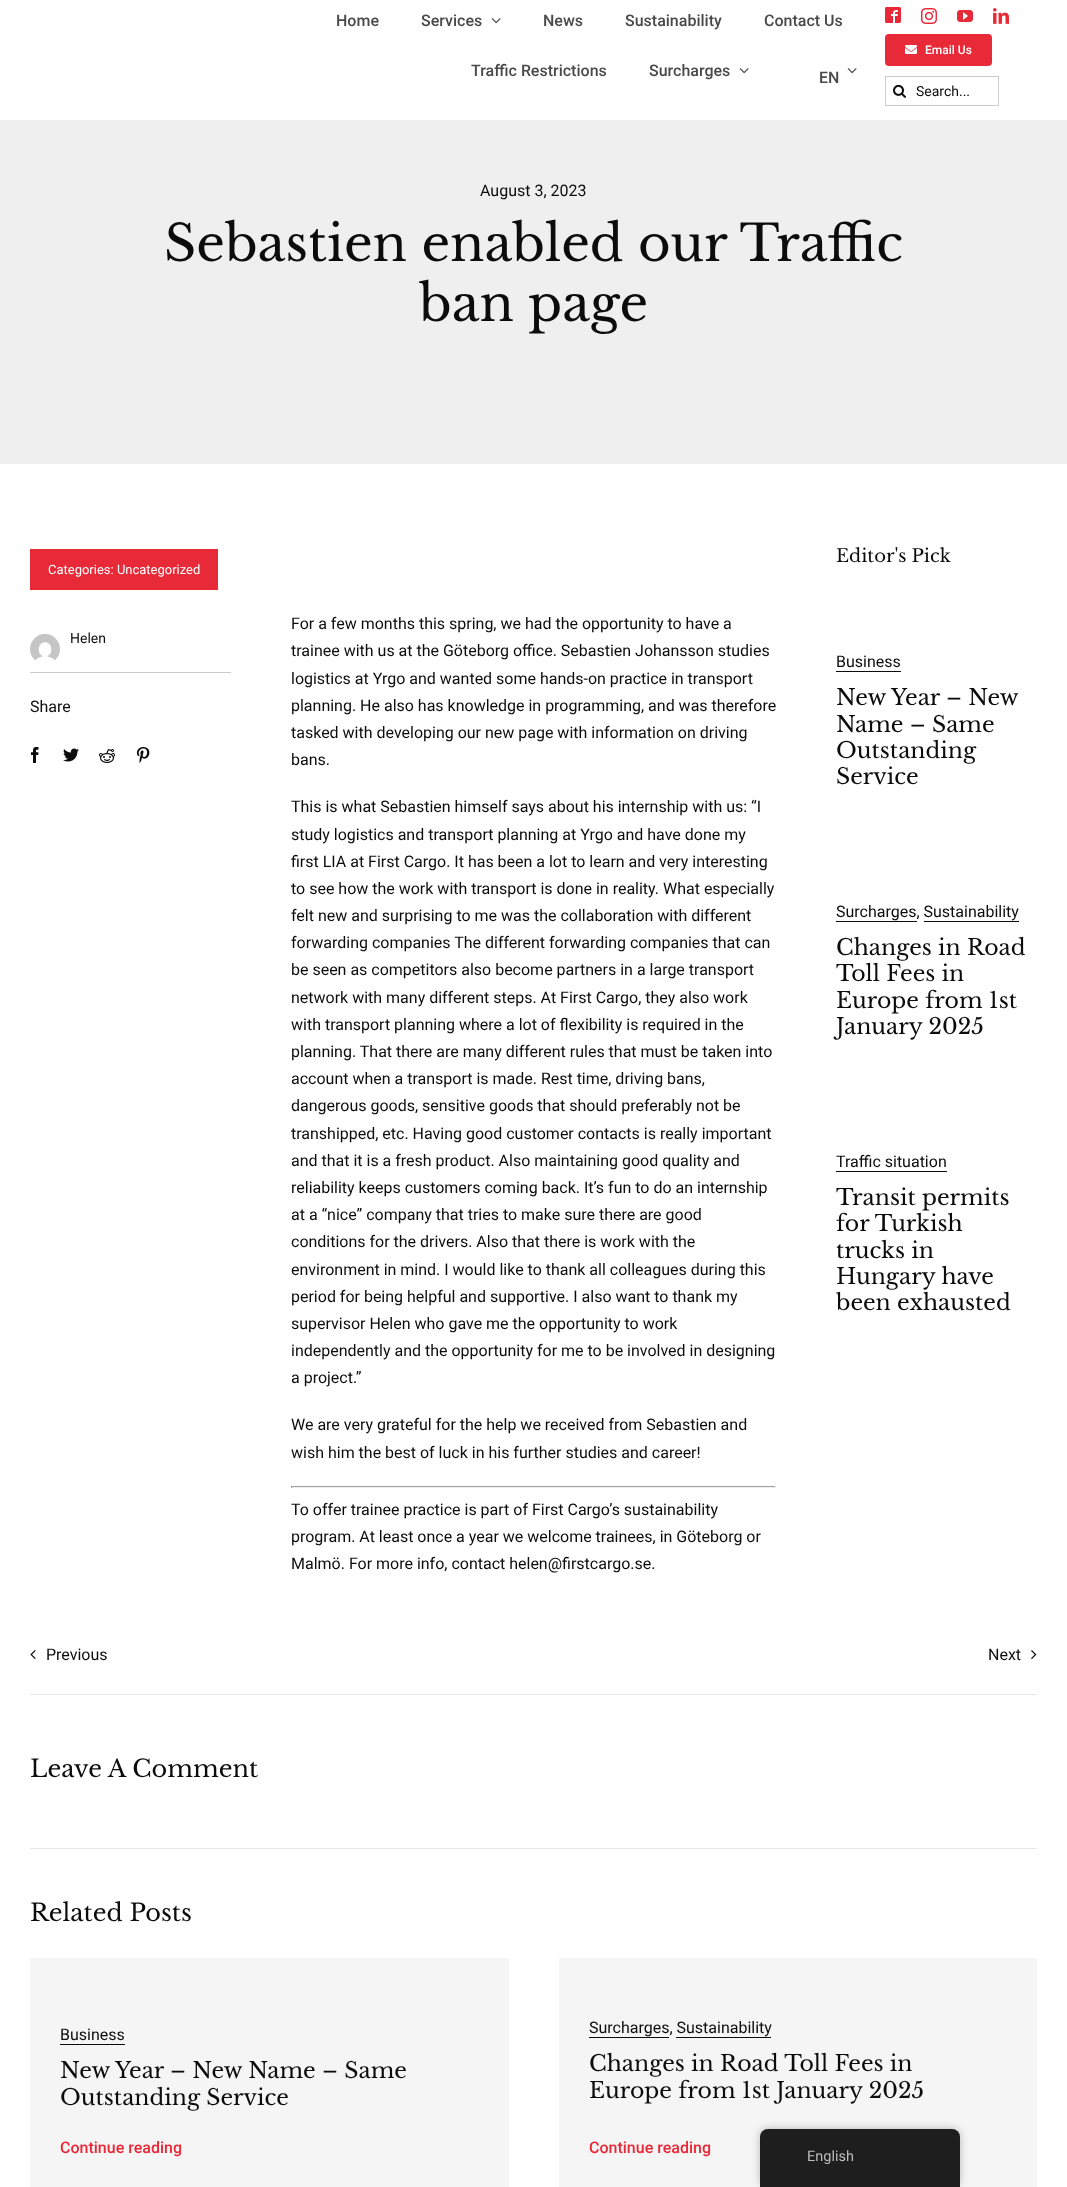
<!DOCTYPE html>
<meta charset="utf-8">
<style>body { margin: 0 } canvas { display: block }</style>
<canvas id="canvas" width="1067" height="2187"></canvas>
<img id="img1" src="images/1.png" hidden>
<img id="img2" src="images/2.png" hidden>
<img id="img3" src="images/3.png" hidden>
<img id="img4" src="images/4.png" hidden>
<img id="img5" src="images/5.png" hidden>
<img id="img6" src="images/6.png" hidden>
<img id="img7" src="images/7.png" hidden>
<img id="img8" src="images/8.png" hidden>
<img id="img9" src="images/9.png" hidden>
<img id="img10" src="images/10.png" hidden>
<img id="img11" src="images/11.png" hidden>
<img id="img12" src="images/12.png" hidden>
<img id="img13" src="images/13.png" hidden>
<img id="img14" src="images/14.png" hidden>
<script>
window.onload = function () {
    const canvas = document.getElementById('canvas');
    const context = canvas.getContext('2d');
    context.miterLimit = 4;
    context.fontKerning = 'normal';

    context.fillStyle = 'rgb(255, 255, 255)';
    context.fillRect(0, 0, 1067, 2187);
    context.drawImage(document.getElementById('img1'), 491, 18, 10, 6);
    context.drawImage(document.getElementById('img1'), 739, 68, 10, 6);
    context.drawImage(document.getElementById('img1'), 847, 68, 10, 6);
    context.drawImage(document.getElementById('img2'), 885, 7, 16, 16);
    context.drawImage(document.getElementById('img3'), 921, 8, 16, 16);
    context.drawImage(document.getElementById('img4'), 957, 10, 16, 12);
    context.drawImage(document.getElementById('img5'), 993, 8, 16, 16);
    context.fillStyle = 'rgb(232, 41, 56)';
    context.beginPath();
    context.roundRect(885, 34, 107, 32, 4);
    context.fill();
    context.drawImage(document.getElementById('img6'), 905, 45, 12, 9);
    context.strokeStyle = 'rgb(204, 204, 204)';
    context.strokeRect(885.5, 76.5, 113, 29);
    context.drawImage(document.getElementById('img7'), 893, 84, 13, 14);
    context.fillStyle = 'rgb(239, 239, 239)';
    context.fillRect(0, 120, 1067, 344);
    context.fillStyle = 'rgb(232, 41, 56)';
    context.fillRect(30, 549, 188, 41);
    context.fillStyle = 'rgb(204, 204, 204)';
    context.fillRect(30, 672, 201, 1);
    context.drawImage(document.getElementById('img8'), 30, 634, 30, 27);
    context.drawImage(document.getElementById('img9'), 31, 747, 8, 16);
    context.drawImage(document.getElementById('img10'), 63, 748, 16, 14);
    context.drawImage(document.getElementById('img11'), 99, 749, 16, 14);
    context.drawImage(document.getElementById('img12'), 136, 747, 14, 16);
    context.fillStyle = 'rgb(159, 159, 159)';
    context.fillRect(291, 1486, 485, 1);
    context.fillStyle = 'rgb(238, 238, 238)';
    context.fillRect(775, 1486, 1, 2);
    context.fillRect(291, 1487, 485, 1);
    context.fillStyle = 'rgb(159, 159, 159)';
    context.fillRect(291, 1486, 1, 2);
    context.fillStyle = 'rgb(12, 12, 12)';
    context.fillRect(836, 671, 65, 1);
    context.fillRect(836, 921, 81, 1);
    context.fillRect(924, 921, 95, 1);
    context.fillRect(836, 1171, 111, 1);
    context.drawImage(document.getElementById('img13'), 30, 1650, 6, 9);
    context.drawImage(document.getElementById('img14'), 1031, 1650, 6, 9);
    context.fillStyle = 'rgb(231, 231, 231)';
    context.fillRect(30, 1694, 1007, 1);
    context.fillRect(30, 1848, 1007, 1);
    context.fillStyle = 'rgb(245, 245, 245)';
    context.fillRect(30, 1958, 479, 229);
    context.fillStyle = 'rgb(12, 12, 12)';
    context.fillRect(60, 2044, 65, 1);
    context.fillStyle = 'rgb(245, 245, 245)';
    context.fillRect(559, 1958, 478, 229);
    context.fillStyle = 'rgb(12, 12, 12)';
    context.fillRect(589, 2037, 80, 1);
    context.fillRect(676, 2037, 95, 1);
    context.fillStyle = 'rgba(0, 0, 0, 0.25)';
    context.filter = 'blur(4px)';
    context.beginPath();
    context.roundRect(760, 2129, 200, 58, 8);
    context.fill();
    context.filter = 'none';
    context.fillStyle = 'rgb(30, 30, 30)';
    context.beginPath();
    context.roundRect(760, 2129, 200, 58, [8, 8, 0, 0]);
    context.fill();
    context.font = '500 16px Roboto';
    context.fillStyle = 'rgb(74, 74, 74)';
    context.fillText('Home', 336, 26);
    context.fillText('Services', 421, 26);
    context.fillText('News', 543, 26);
    context.fillText('Sustainability', 625, 26);
    context.fillText('Contact Us', 764, 26);
    context.fillText('Traffic Restrictions', 471, 76);
    context.fillText('Surcharges', 649, 76);
    context.fillText('EN', 819, 83);
    context.font = '500 12px Roboto';
    context.fillStyle = 'rgb(255, 255, 255)';
    context.fillText('Email Us', 925, 54);
    context.font = '14px Roboto';
    context.fillStyle = 'rgb(12, 12, 12)';
    context.fillText('Search...', 916, 96);
    context.font = '16px Roboto';
    context.fillText('August 3, 2023', 480, 196);
    context.font = '50px Libre Baskerville';
    context.fillText('Sebastien enabled our Traffic', 164, 261);
    context.fillText('ban page', 419, 321);
    context.font = '13px Roboto';
    context.fillStyle = 'rgb(255, 255, 255)';
    context.fillText('Categories: Uncategorized', 48, 574);
    context.font = '14px Roboto';
    context.fillStyle = 'rgb(12, 12, 12)';
    context.fillText('Helen', 70, 643);
    context.font = '16px Roboto';
    context.fillText('Share', 30, 712);
    context.fillText('For a few months this spring, we had the opportunity to have a', 291, 629);
    context.fillText('trainee with us at the Göteborg office. Sebastien Johansson studies', 291, 656);
    context.fillText('logistics at Yrgo and wanted some hands-on practice in transport', 291, 684);
    context.fillText('planning. He also has knowledge in programming, and was therefore', 291, 711);
    context.fillText('tasked with developing our new page with information on driving', 291, 738);
    context.fillText('bans.', 291, 765);
    context.fillText('This is what Sebastien himself says about his internship with us: “I', 291, 812);
    context.fillText('study logistics and transport planning at Yrgo and have done my', 291, 840);
    context.fillText('first LIA at First Cargo. It has been a lot to learn and very interesting', 291, 867);
    context.fillText('to see how the work with transport is done in reality. What especially', 291, 894);
    context.fillText('felt new and surprising to me was the collaboration with different', 291, 921);
    context.fillText('forwarding companies The different forwarding companies that can', 291, 948);
    context.fillText('be seen as competitors also become partners in a large transport', 291, 975);
    context.fillText('network with many different steps. At First Cargo, they also work', 291, 1003);
    context.fillText('with transport planning where a lot of flexibility is required in the', 291, 1030);
    context.fillText('planning. That there are many different rules that must be taken into', 291, 1057);
    context.fillText('account when a transport is made. Rest time, driving bans,', 291, 1084);
    context.fillText('dangerous goods, sensitive goods that should preferably not be', 291, 1111);
    context.fillText('transhipped, etc. Having good customer contacts is really important', 291, 1139);
    context.fillText('and that it is a fresh product. Also maintaining good quality and', 291, 1166);
    context.fillText('reliability keeps customers coming back. It’s fun to do an internship', 291, 1193);
    context.fillText('at a “nice” company that tries to make sure there are good', 291, 1220);
    context.fillText('conditions for the drivers. Also that there is work with the', 291, 1247);
    context.fillText('environment in mind. I would like to thank all colleagues during this', 291, 1275);
    context.fillText('period for being helpful and supportive. I also want to thank my', 291, 1302);
    context.fillText('supervisor Helen who gave me the opportunity to work', 291, 1329);
    context.fillText('independently and the opportunity for me to be involved in designing', 291, 1356);
    context.fillText('a project.”', 291, 1383);
    context.fillText('We are very grateful for the help we received from Sebastien and', 291, 1430);
    context.fillText('wish him the best of luck in his further studies and career!', 291, 1458);
    context.fillText('To offer trainee practice is part of First Cargo’s sustainability', 291, 1515);
    context.fillText('program. At least once a year we welcome trainees, in Göteborg or', 291, 1542);
    context.fillText('Malmö. For more info, contact helen@firstcargo.se.', 291, 1569);
    context.font = '18px Libre Baskerville';
    context.fillText('Editor\'s Pick', 836, 562);
    context.font = '16px Roboto';
    context.fillText('Business', 836, 667);
    context.font = '22px Libre Baskerville';
    context.fillText('New Year – New', 836, 705);
    context.fillText('Name – Same', 836, 732);
    context.fillText('Outstanding', 836, 758);
    context.fillText('Service', 836, 784);
    context.font = '16px Roboto';
    context.fillText('Surcharges, Sustainability', 836, 917);
    context.font = '22px Libre Baskerville';
    context.fillText('Changes in Road', 836, 955);
    context.fillText('Toll Fees in', 836, 981);
    context.fillText('Europe from 1st', 836, 1008);
    context.fillText('January 2025', 836, 1034);
    context.font = '16px Roboto';
    context.fillText('Traffic situation', 836, 1167);
    context.font = '22px Libre Baskerville';
    context.fillText('Transit permits', 836, 1205);
    context.fillText('for Turkish', 836, 1231);
    context.fillText('trucks in', 836, 1258);
    context.fillText('Hungary have', 836, 1284);
    context.fillText('been exhausted', 836, 1310);
    context.font = '16px Roboto';
    context.fillText('Previous', 46, 1660);
    context.fillText('Next', 988, 1660);
    context.font = '24px Libre Baskerville';
    context.fillText('Leave A Comment', 30, 1777);
    context.fillText('Related Posts', 30, 1921);
    context.font = '16px Roboto';
    context.fillText('Business', 60, 2040);
    context.font = '22px Libre Baskerville';
    context.fillText('New Year – New Name – Same', 60, 2078);
    context.fillText('Outstanding Service', 60, 2105);
    context.font = '500 16px Roboto';
    context.fillStyle = 'rgb(232, 41, 56)';
    context.fillText('Continue reading', 60, 2153);
    context.font = '16px Roboto';
    context.fillStyle = 'rgb(12, 12, 12)';
    context.fillText('Surcharges, Sustainability', 589, 2033);
    context.font = '22px Libre Baskerville';
    context.fillText('Changes in Road Toll Fees in', 589, 2071);
    context.fillText('Europe from 1st January 2025', 589, 2098);
    context.font = '500 16px Roboto';
    context.fillStyle = 'rgb(232, 41, 56)';
    context.fillText('Continue reading', 589, 2153);
    context.font = '14.5px Roboto';
    context.fillStyle = 'rgb(189, 189, 189)';
    context.fillText('English', 807, 2161);
};
</script>
